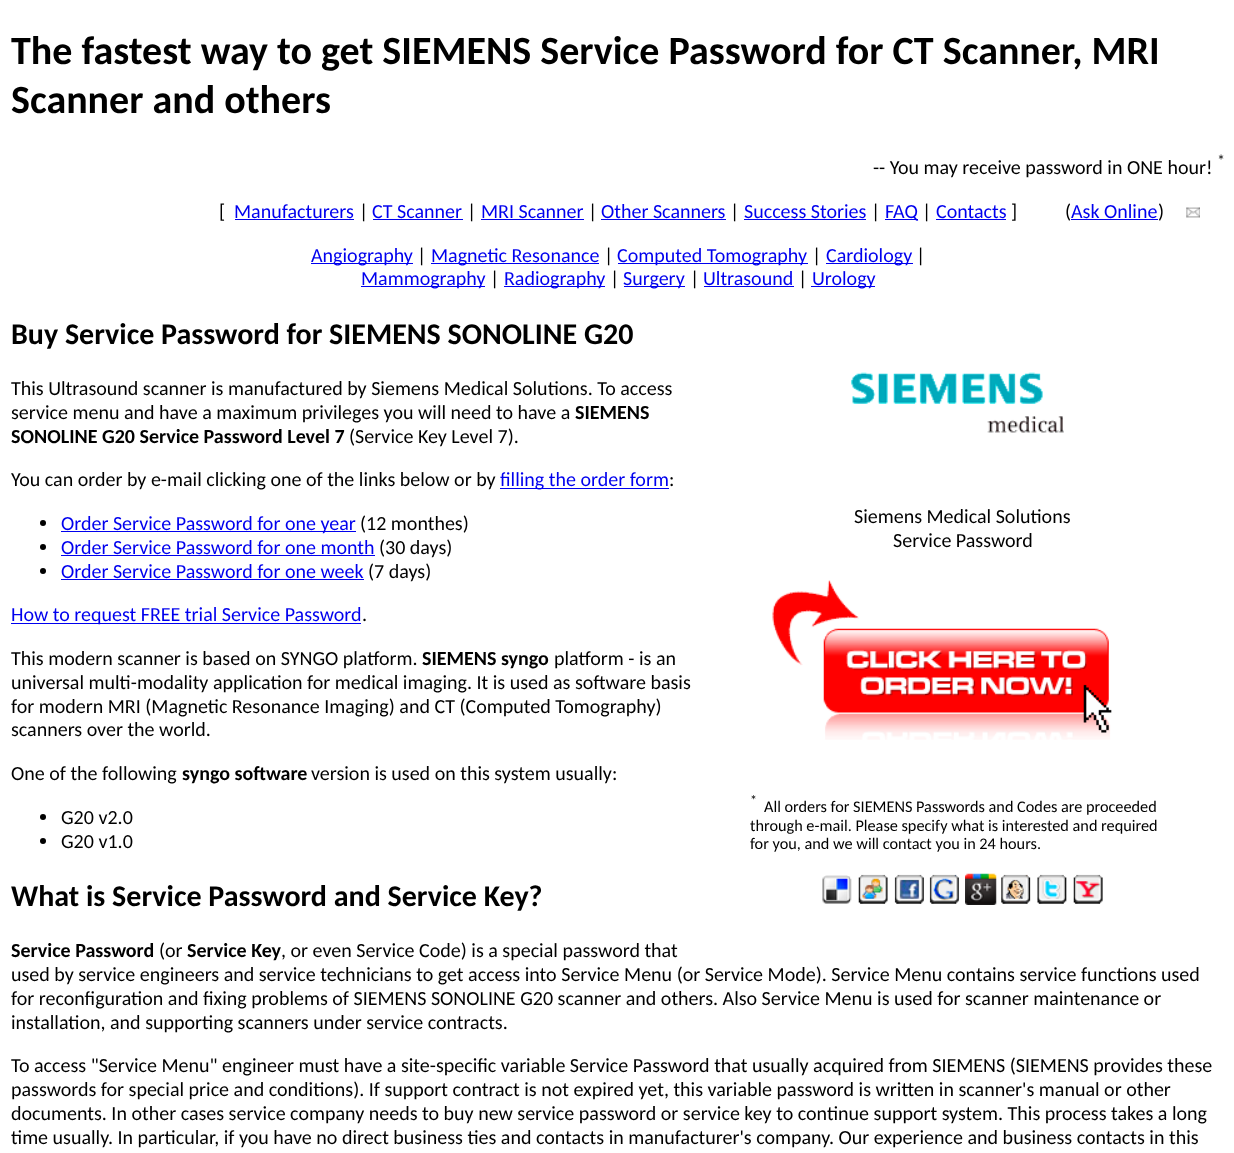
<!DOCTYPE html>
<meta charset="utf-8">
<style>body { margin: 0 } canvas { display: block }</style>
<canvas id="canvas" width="1234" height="1153"></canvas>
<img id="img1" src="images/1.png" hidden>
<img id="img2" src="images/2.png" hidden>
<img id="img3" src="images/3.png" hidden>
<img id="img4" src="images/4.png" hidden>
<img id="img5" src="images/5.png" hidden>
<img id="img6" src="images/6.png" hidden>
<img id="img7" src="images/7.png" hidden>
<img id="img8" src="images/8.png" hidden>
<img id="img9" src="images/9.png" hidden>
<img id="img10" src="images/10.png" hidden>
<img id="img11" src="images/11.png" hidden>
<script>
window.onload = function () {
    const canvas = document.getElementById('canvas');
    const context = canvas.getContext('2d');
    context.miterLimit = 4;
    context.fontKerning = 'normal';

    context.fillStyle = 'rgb(255, 255, 255)';
    context.fillRect(0, 0, 1234, 1153);
    context.fillStyle = 'rgb(0, 0, 238)';
    context.fillRect(235, 219, 119, 1);
    context.fillRect(373, 219, 90, 1);
    context.fillRect(481, 219, 103, 1);
    context.fillRect(601, 219, 125, 1);
    context.fillRect(744, 219, 122, 1);
    context.fillRect(885, 219, 33, 1);
    context.fillRect(936, 219, 70, 1);
    context.fillRect(1071, 219, 87, 1);
    context.drawImage(document.getElementById('img1'), 1186, 207, 14, 11);
    context.fillRect(311, 263, 102, 1);
    context.fillRect(431, 263, 168, 1);
    context.fillRect(618, 263, 190, 1);
    context.fillRect(826, 263, 87, 1);
    context.fillRect(361, 286, 124, 1);
    context.fillRect(504, 286, 101, 1);
    context.fillRect(624, 286, 61, 1);
    context.fillRect(704, 286, 90, 1);
    context.fillRect(811, 286, 64, 1);
    context.fillRect(500, 488, 169, 1);
    context.fillStyle = 'rgb(0, 0, 0)';
    context.beginPath();
    context.arc(43, 523, 3, 0, 2 * Math.PI);
    context.fill();
    context.fillStyle = 'rgb(0, 0, 238)';
    context.fillRect(61, 531, 295, 1);
    context.fillStyle = 'rgb(0, 0, 0)';
    context.beginPath();
    context.arc(43, 547, 3, 0, 2 * Math.PI);
    context.fill();
    context.fillStyle = 'rgb(0, 0, 238)';
    context.fillRect(61, 555, 314, 1);
    context.fillStyle = 'rgb(0, 0, 0)';
    context.beginPath();
    context.arc(43, 571, 3, 0, 2 * Math.PI);
    context.fill();
    context.fillStyle = 'rgb(0, 0, 238)';
    context.fillRect(61, 579, 303, 1);
    context.drawImage(document.getElementById('img2'), 851, 372, 213, 61);
    context.drawImage(document.getElementById('img3'), 772, 580, 340, 160);
    context.drawImage(document.getElementById('img4'), 822, 875, 30, 29);
    context.drawImage(document.getElementById('img5'), 858, 874, 30, 30);
    context.drawImage(document.getElementById('img6'), 894, 874, 30, 30);
    context.drawImage(document.getElementById('img7'), 929, 874, 30, 30);
    context.drawImage(document.getElementById('img8'), 965, 873, 32, 32);
    context.drawImage(document.getElementById('img9'), 1001, 874, 30, 30);
    context.drawImage(document.getElementById('img10'), 1037, 874, 30, 30);
    context.drawImage(document.getElementById('img11'), 1073, 874, 30, 30);
    context.fillRect(11, 623, 350, 1);
    context.fillStyle = 'rgb(0, 0, 0)';
    context.beginPath();
    context.arc(43, 817, 3, 0, 2 * Math.PI);
    context.fill();
    context.beginPath();
    context.arc(43, 841, 3, 0, 2 * Math.PI);
    context.fill();
    context.font = 'bold 40px Carlito';
    context.fillText('The fastest way to get SIEMENS Service Password for CT Scanner, MRI', 11, 64);
    context.fillText('Scanner and others', 11, 113);
    context.font = '16.25px Carlito';
    context.fillText('*', 1217, 166);
    context.font = '20px Carlito';
    context.fillText('-- You may receive password in ONE hour!', 873, 174);
    context.fillText('[', 219, 218);
    context.fillStyle = 'rgb(0, 0, 238)';
    context.fillText('Manufacturers', 234, 218);
    context.fillStyle = 'rgb(0, 0, 0)';
    context.fillText('|', 359, 218);
    context.fillStyle = 'rgb(0, 0, 238)';
    context.fillText('CT Scanner', 372, 218);
    context.fillStyle = 'rgb(0, 0, 0)';
    context.fillText('|', 467, 218);
    context.fillStyle = 'rgb(0, 0, 238)';
    context.fillText('MRI Scanner', 481, 218);
    context.fillStyle = 'rgb(0, 0, 0)';
    context.fillText('|', 588, 218);
    context.fillStyle = 'rgb(0, 0, 238)';
    context.fillText('Other Scanners', 601, 218);
    context.fillStyle = 'rgb(0, 0, 0)';
    context.fillText('|', 730, 218);
    context.fillStyle = 'rgb(0, 0, 238)';
    context.fillText('Success Stories', 744, 218);
    context.fillStyle = 'rgb(0, 0, 0)';
    context.fillText('|', 871, 218);
    context.fillStyle = 'rgb(0, 0, 238)';
    context.fillText('FAQ', 885, 218);
    context.fillStyle = 'rgb(0, 0, 0)';
    context.fillText('|', 922, 218);
    context.fillStyle = 'rgb(0, 0, 238)';
    context.fillText('Contacts', 936, 218);
    context.fillStyle = 'rgb(0, 0, 0)';
    context.fillText(']', 1011, 218);
    context.fillText('(', 1065, 218);
    context.fillStyle = 'rgb(0, 0, 238)';
    context.fillText('Ask Online', 1071, 218);
    context.fillStyle = 'rgb(0, 0, 0)';
    context.fillText(')', 1158, 218);
    context.fillStyle = 'rgb(0, 0, 238)';
    context.fillText('Angiography', 311, 262);
    context.fillStyle = 'rgb(0, 0, 0)';
    context.fillText('|', 417, 262);
    context.fillStyle = 'rgb(0, 0, 238)';
    context.fillText('Magnetic Resonance', 431, 262);
    context.fillStyle = 'rgb(0, 0, 0)';
    context.fillText('|', 604, 262);
    context.fillStyle = 'rgb(0, 0, 238)';
    context.fillText('Computed Tomography', 617, 262);
    context.fillStyle = 'rgb(0, 0, 0)';
    context.fillText('|', 812, 262);
    context.fillStyle = 'rgb(0, 0, 238)';
    context.fillText('Cardiology', 826, 262);
    context.fillStyle = 'rgb(0, 0, 0)';
    context.fillText('|', 916, 262);
    context.fillStyle = 'rgb(0, 0, 238)';
    context.fillText('Mammography', 361, 285);
    context.fillStyle = 'rgb(0, 0, 0)';
    context.fillText('|', 490, 285);
    context.fillStyle = 'rgb(0, 0, 238)';
    context.fillText('Radiography', 504, 285);
    context.fillStyle = 'rgb(0, 0, 0)';
    context.fillText('|', 610, 285);
    context.fillStyle = 'rgb(0, 0, 238)';
    context.fillText('Surgery', 623, 285);
    context.fillStyle = 'rgb(0, 0, 0)';
    context.fillText('|', 690, 285);
    context.fillStyle = 'rgb(0, 0, 238)';
    context.fillText('Ultrasound', 703, 285);
    context.fillStyle = 'rgb(0, 0, 0)';
    context.fillText('|', 798, 285);
    context.fillStyle = 'rgb(0, 0, 238)';
    context.fillText('Urology', 812, 285);
    context.font = 'bold 30px Carlito';
    context.fillStyle = 'rgb(0, 0, 0)';
    context.fillText('Buy Service Password for SIEMENS SONOLINE G20', 11, 344);
    context.font = '20px Carlito';
    context.fillText('This Ultrasound scanner is manufactured by Siemens Medical Solutions. To access', 11, 395);
    context.fillText('service menu and have a maximum privileges you will need to have a', 11, 419);
    context.font = 'bold 20px Carlito';
    context.fillText('SIEMENS', 575, 419);
    context.fillText('SONOLINE G20 Service Password Level 7', 11, 443);
    context.font = '20px Carlito';
    context.fillText('(Service Key Level 7).', 349, 443);
    context.fillText('You can order by e-mail clicking one of the links below or by', 11, 486);
    context.fillStyle = 'rgb(0, 0, 238)';
    context.fillText('filling the order form', 500, 486);
    context.fillStyle = 'rgb(0, 0, 0)';
    context.fillText(':', 669, 486);
    context.fillStyle = 'rgb(0, 0, 238)';
    context.fillText('Order Service Password for one year', 61, 530);
    context.fillStyle = 'rgb(0, 0, 0)';
    context.fillText('(12 monthes)', 360, 530);
    context.fillStyle = 'rgb(0, 0, 238)';
    context.fillText('Order Service Password for one month', 61, 554);
    context.fillStyle = 'rgb(0, 0, 0)';
    context.fillText('(30 days)', 379, 554);
    context.fillStyle = 'rgb(0, 0, 238)';
    context.fillText('Order Service Password for one week', 61, 578);
    context.fillStyle = 'rgb(0, 0, 0)';
    context.fillText('(7 days)', 368, 578);
    context.fillText('Siemens Medical Solutions', 854, 523);
    context.fillText('Service Password', 893, 547);
    context.font = '14px Carlito';
    context.fillText('*', 750, 805);
    context.font = '16.25px Carlito';
    context.fillText('All orders for SIEMENS Passwords and Codes are proceeded', 764, 812);
    context.fillText('through e-mail. Please specify what is interested and required', 750, 831);
    context.fillText('for you, and we will contact you in 24 hours.', 750, 849);
    context.font = '20px Carlito';
    context.fillStyle = 'rgb(0, 0, 238)';
    context.fillText('How to request FREE trial Service Password', 11, 621);
    context.fillStyle = 'rgb(0, 0, 0)';
    context.fillText('.', 362, 621);
    context.fillText('This modern scanner is based on SYNGO platform.', 11, 665);
    context.font = 'bold 20px Carlito';
    context.fillText('SIEMENS syngo', 422, 665);
    context.font = '20px Carlito';
    context.fillText('platform - is an', 554, 665);
    context.fillText('universal multi-modality application for medical imaging. It is used as software basis', 11, 689);
    context.fillText('for modern MRI (Magnetic Resonance Imaging) and CT (Computed Tomography)', 11, 713);
    context.fillText('scanners over the world.', 11, 736);
    context.fillText('One of the following', 11, 780);
    context.font = 'bold 20px Carlito';
    context.fillText('syngo software', 182, 780);
    context.font = '20px Carlito';
    context.fillText('version is used on this system usually:', 311, 780);
    context.fillText('G20 v2.0', 61, 824);
    context.fillText('G20 v1.0', 61, 848);
    context.font = 'bold 30px Carlito';
    context.fillText('What is Service Password and Service Key?', 11, 906);
    context.font = 'bold 20px Carlito';
    context.fillText('Service Password', 11, 957);
    context.font = '20px Carlito';
    context.fillText('(or', 159, 957);
    context.font = 'bold 20px Carlito';
    context.fillText('Service Key', 187, 957);
    context.font = '20px Carlito';
    context.fillText(', or even Service Code) is a special password that', 281, 957);
    context.fillText('used by service engineers and service technicians to get access into Service Menu (or Service Mode). Service Menu contains service functions used', 11, 981);
    context.fillText('for reconfiguration and fixing problems of SIEMENS SONOLINE G20 scanner and others. Also Service Menu is used for scanner maintenance or', 11, 1005);
    context.fillText('installation, and supporting scanners under service contracts.', 11, 1029);
    context.fillText('To access "Service Menu" engineer must have a site-specific variable Service Password that usually acquired from SIEMENS (SIEMENS provides these', 11, 1072);
    context.fillText('passwords for special price and conditions). If support contract is not expired yet, this variable password is written in scanner\'s manual or other', 11, 1096);
    context.fillText('documents. In other cases service company needs to buy new service password or service key to continue support system. This process takes a long', 11, 1120);
    context.fillText('time usually. In particular, if you have no direct business ties and contacts in manufacturer\'s company. Our experience and business contacts in this', 11, 1144);
};
</script>
